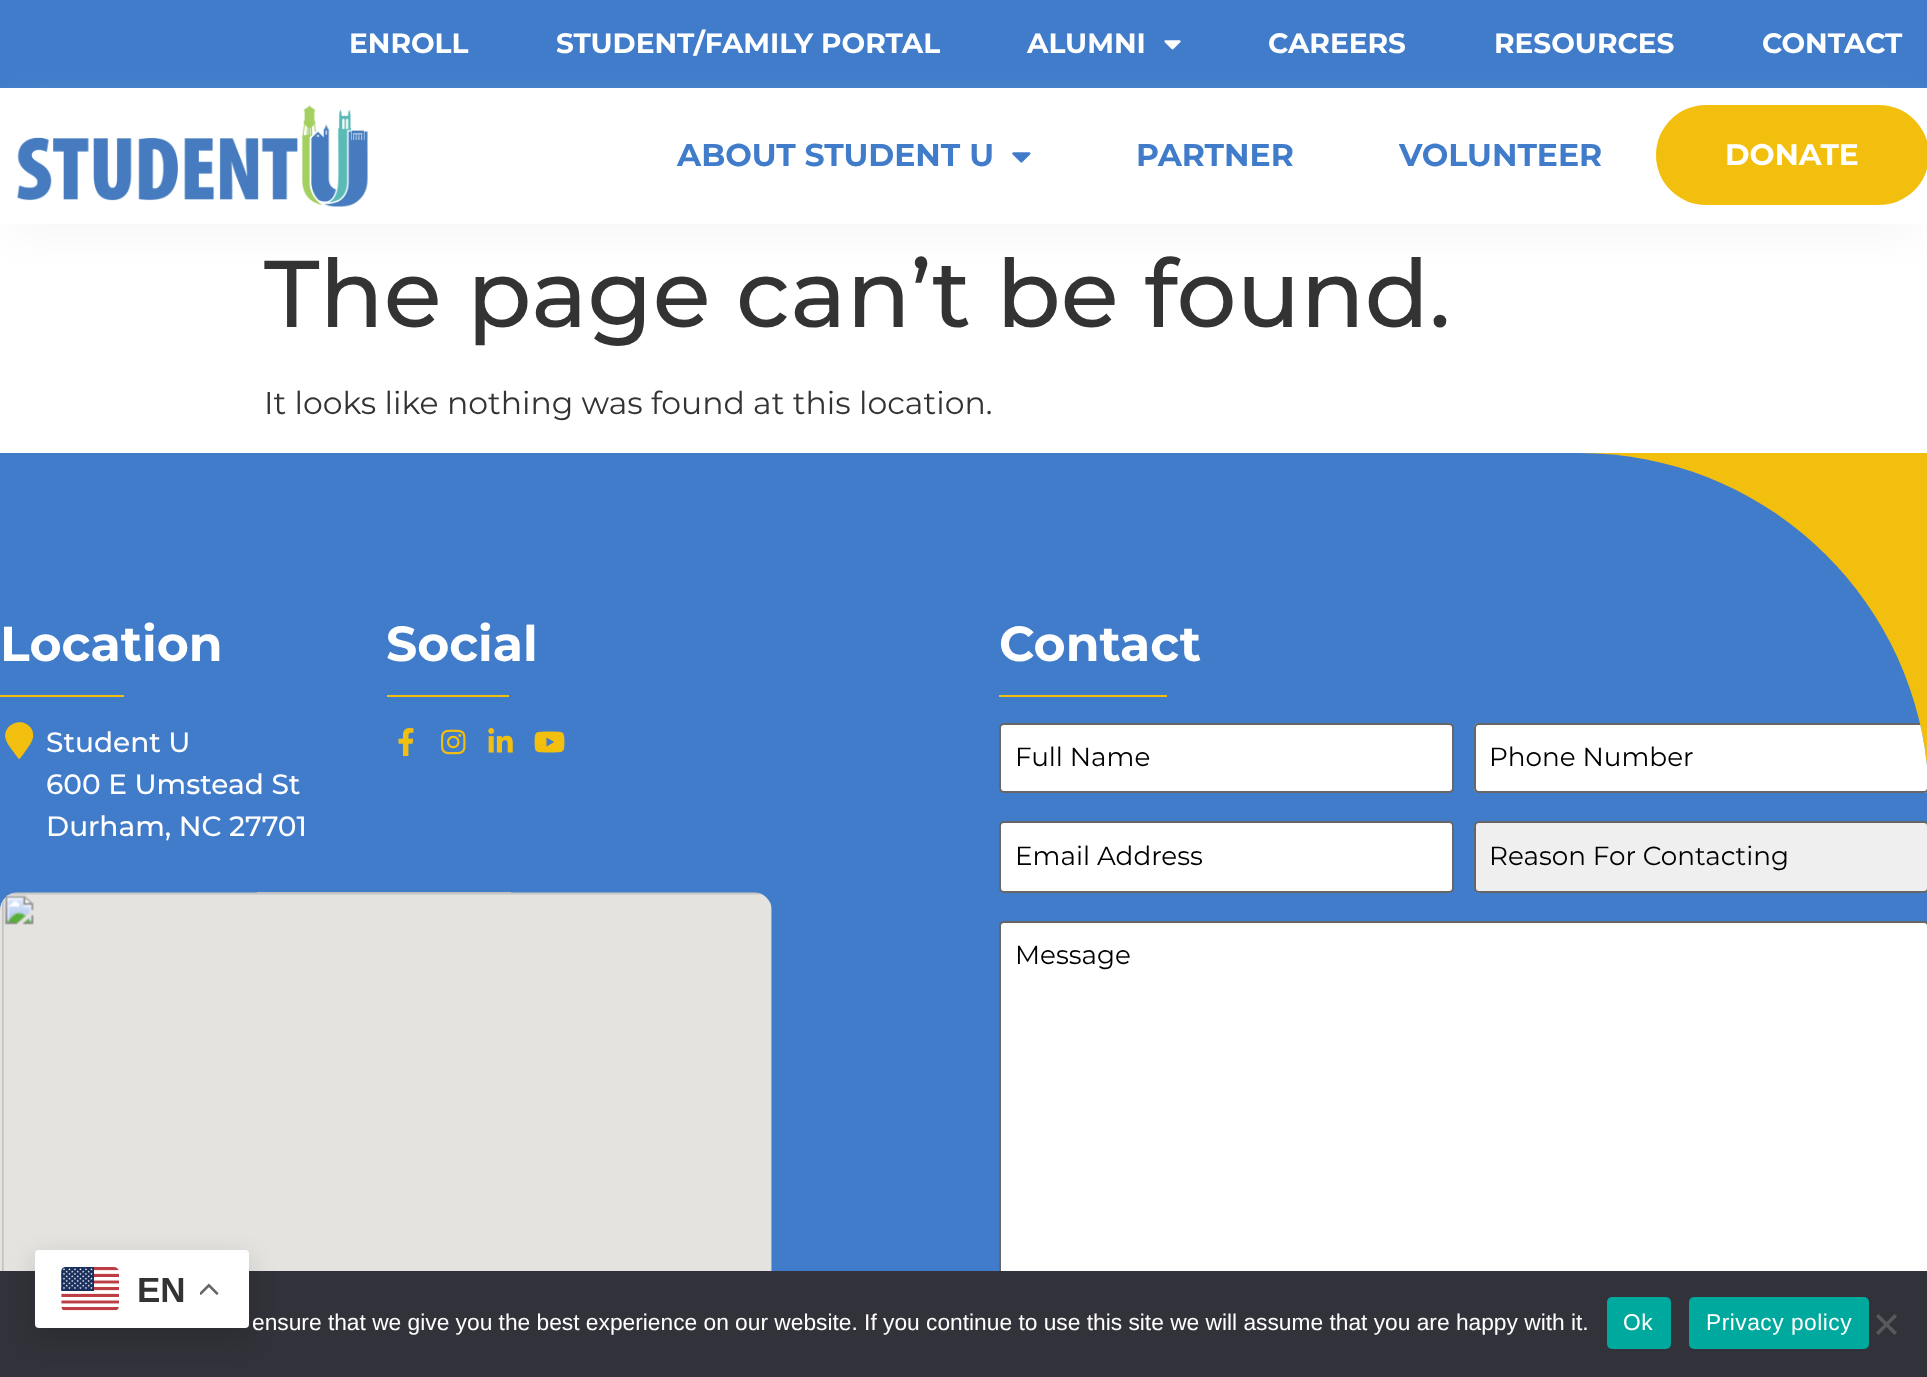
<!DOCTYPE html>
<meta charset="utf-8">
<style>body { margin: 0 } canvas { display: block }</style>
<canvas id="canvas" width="1927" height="1377"></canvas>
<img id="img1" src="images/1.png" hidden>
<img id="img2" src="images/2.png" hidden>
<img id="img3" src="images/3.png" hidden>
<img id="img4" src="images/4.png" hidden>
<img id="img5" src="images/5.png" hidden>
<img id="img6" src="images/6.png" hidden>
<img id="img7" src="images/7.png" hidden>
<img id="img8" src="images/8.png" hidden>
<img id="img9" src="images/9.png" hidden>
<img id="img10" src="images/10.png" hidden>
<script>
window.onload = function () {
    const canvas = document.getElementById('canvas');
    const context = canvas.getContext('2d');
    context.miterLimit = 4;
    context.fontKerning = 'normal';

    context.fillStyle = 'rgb(255, 255, 255)';
    context.fillRect(0, 0, 1927, 1377);
    context.fillStyle = 'rgb(64, 124, 202)';
    context.fillRect(0, 0, 1927, 88);
    context.drawImage(document.getElementById('img1'), 1164, 40, 17, 10);
    context.save();
    context.beginPath();
    context.moveTo(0, 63);
    context.lineTo(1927, 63);
    context.lineTo(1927, 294);
    context.lineTo(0, 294);
    context.closePath();
    context.moveTo(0, 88);
    context.lineTo(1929, 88);
    context.lineTo(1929, 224);
    context.lineTo(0, 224);
    context.closePath();
    context.clip('evenodd');
    context.fillStyle = 'rgb(248, 248, 248)';
    context.filter = 'blur(17.5px)';
    context.beginPath();
    context.rect(7, 117, 1915, 123);
    context.fill();
    context.filter = 'none';
    context.restore();
    context.drawImage(document.getElementById('img2'), 17, 105, 351, 102);
    context.drawImage(document.getElementById('img3'), 1012, 152, 19, 11);
    context.fillStyle = 'rgb(243, 191, 14)';
    context.beginPath();
    context.roundRect(1656, 105, 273, 100, 50);
    context.fill();
    context.fillRect(1581, 453, 346, 313);
    context.fillStyle = 'rgb(64, 124, 202)';
    context.beginPath();
    context.moveTo(0, 453);
    context.lineTo(1579, 453);
    context.bezierCurveTo(1772.5, 453, 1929, 609.5, 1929, 803);
    context.lineTo(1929, 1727);
    context.lineTo(0, 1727);
    context.closePath();
    context.fill();
    context.fillStyle = 'rgb(243, 191, 14)';
    context.fillRect(0, 695, 124, 2);
    context.beginPath();
    context.moveTo(18, 758);
    context.lineTo(12, 750);
    context.bezierCurveTo(9.5, 746.5, 6.5, 742.5, 5.5, 738.5);
    context.bezierCurveTo(2.5, 724, 22.5, 716, 31, 728);
    context.bezierCurveTo(37, 737.5, 29.5, 745, 24.5, 752.5);
    context.lineTo(20, 758.5);
    context.bezierCurveTo(19.5, 759, 18.5, 759, 18, 758);
    context.closePath();
    context.fill();
    context.fillRect(387, 695, 122, 2);
    context.drawImage(document.getElementById('img4'), 398, 728, 16, 28);
    context.drawImage(document.getElementById('img5'), 441, 729, 25, 26);
    context.drawImage(document.getElementById('img6'), 488, 728, 25, 25);
    context.drawImage(document.getElementById('img7'), 534, 731, 31, 22);
    context.drawImage(document.getElementById('img8'), 0, 892, 772, 379);
    context.fillRect(999, 695, 168, 2);
    context.fillStyle = 'rgb(255, 255, 255)';
    context.beginPath();
    context.roundRect(1000, 724, 453, 68, 4);
    context.fill();
    context.strokeStyle = 'rgb(102, 102, 102)';
    context.lineWidth = 2;
    context.stroke();
    context.save();
    context.beginPath();
    context.moveTo(0, 453);
    context.lineTo(1579, 453);
    context.bezierCurveTo(1772.5, 453, 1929, 609.5, 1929, 803);
    context.lineTo(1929, 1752);
    context.lineTo(0, 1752);
    context.closePath();
    context.clip();
    context.beginPath();
    context.roundRect(1474, 723, 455, 70, 5);
    context.fill();
    context.restore();
    context.fillStyle = 'rgb(102, 102, 102)';
    context.beginPath();
    context.moveTo(1479, 723);
    context.bezierCurveTo(1476, 723, 1474, 725, 1474, 728);
    context.lineTo(1474, 788);
    context.bezierCurveTo(1474, 791, 1476, 793, 1479, 793);
    context.lineTo(1924, 793);
    context.bezierCurveTo(1926, 793, 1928, 792, 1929, 790);
    context.lineTo(1927, 765);
    context.lineTo(1927, 788);
    context.bezierCurveTo(1927, 790, 1926, 791, 1924, 791);
    context.lineTo(1479, 791);
    context.bezierCurveTo(1477, 791, 1476, 790, 1476, 788);
    context.lineTo(1476, 728);
    context.bezierCurveTo(1476, 726, 1477, 725, 1479, 725);
    context.lineTo(1920, 725);
    context.lineTo(1920, 723);
    context.closePath();
    context.fill();
    context.fillStyle = 'rgb(255, 255, 255)';
    context.beginPath();
    context.roundRect(1000, 822, 453, 70, 4);
    context.fill();
    context.stroke();
    context.fillStyle = 'rgb(239, 239, 239)';
    context.beginPath();
    context.roundRect(1475, 822, 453, 70, 4);
    context.fill();
    context.stroke();
    context.fillStyle = 'rgb(255, 255, 255)';
    context.beginPath();
    context.roundRect(1000, 922, 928, 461, 4);
    context.fill();
    context.stroke();
    context.fillStyle = 'rgb(50, 50, 58)';
    context.fillRect(0, 1271, 1927, 106);
    context.fillStyle = 'rgba(0, 0, 0, 0.15)';
    context.filter = 'blur(13px)';
    context.beginPath();
    context.roundRect(35, 1258, 214, 79, 4);
    context.fill();
    context.filter = 'none';
    context.fillStyle = 'rgb(255, 255, 255)';
    context.beginPath();
    context.roundRect(35, 1250, 214, 78, 4);
    context.fill();
    context.drawImage(document.getElementById('img9'), 61, 1267, 58, 44);
    context.drawImage(document.getElementById('img10'), 200, 1283, 19, 12);
    context.fillStyle = 'rgb(0, 169, 157)';
    context.beginPath();
    context.roundRect(1607, 1297, 64, 52, 5);
    context.fill();
    context.beginPath();
    context.roundRect(1689, 1297, 180, 52, 5);
    context.fill();
    context.fillStyle = 'rgb(89, 89, 93)';
    context.beginPath();
    context.moveTo(1894.5, 1314);
    context.lineTo(1897, 1316.5);
    context.lineTo(1878.5, 1335);
    context.lineTo(1876, 1332.5);
    context.closePath();
    context.fill();
    context.beginPath();
    context.moveTo(1876, 1316.5);
    context.lineTo(1878.5, 1314);
    context.lineTo(1897, 1332.5);
    context.lineTo(1894.5, 1335);
    context.closePath();
    context.fill();
    context.font = 'bold 28px Montserrat';
    context.fillStyle = 'rgb(255, 255, 255)';
    context.fillText('ENROLL', 349, 53);
    context.fillText('STUDENT/FAMILY PORTAL', 556, 53);
    context.fillText('ALUMNI', 1027, 53);
    context.fillText('CAREERS', 1268, 53);
    context.fillText('RESOURCES', 1494, 53);
    context.fillText('CONTACT', 1762, 53);
    context.font = 'bold 31.5px Montserrat';
    context.fillStyle = 'rgb(64, 124, 202)';
    context.fillText('ABOUT STUDENT U', 677, 166);
    context.fillText('PARTNER', 1136, 166);
    context.fillText('VOLUNTEER', 1399, 166);
    context.font = 'bold 29.75px Montserrat';
    context.fillStyle = 'rgb(255, 255, 255)';
    context.fillText('DONATE', 1725, 165);
    context.font = '500 94.5px Montserrat';
    context.fillStyle = 'rgb(51, 51, 51)';
    context.fillText('The page can’t be found.', 264, 327);
    context.font = '31.5px Montserrat';
    context.fillText('It looks like nothing was found at this location.', 264, 414);
    context.font = 'bold 49px Montserrat';
    context.fillStyle = 'rgb(255, 255, 255)';
    context.fillText('Location', 0, 661);
    context.font = '500 28px Montserrat';
    context.fillText('Student U', 46, 752);
    context.fillText('600 E Umstead St', 46, 794);
    context.fillText('Durham, NC 27701', 46, 836);
    context.font = 'bold 49px Montserrat';
    context.fillText('Social', 386, 661);
    context.fillText('Contact', 999, 661);
    context.font = '26.25px Montserrat';
    context.fillStyle = 'rgb(0, 0, 0)';
    context.fillText('Full Name', 1015, 766);
    context.fillText('Phone Number', 1489, 766);
    context.fillText('Email Address', 1015, 865);
    context.fillText('Reason For Contacting', 1489, 865);
    context.fillText('Message', 1015, 964);
    context.font = 'bold 35px Liberation Sans';
    context.fillStyle = 'rgb(51, 51, 51)';
    context.fillText('EN', 137, 1302);
    context.font = '22.75px Liberation Sans';
    context.fillStyle = 'rgb(255, 255, 255)';
    context.fillText('ensure that we give you the best experience on our website. If you continue to use this site we will assume that you are happy with it.', 252, 1330);
    context.letterSpacing = '0.5px';
    context.fillText('Ok', 1623, 1330);
    context.fillText('Privacy policy', 1706, 1330);
};
</script>
